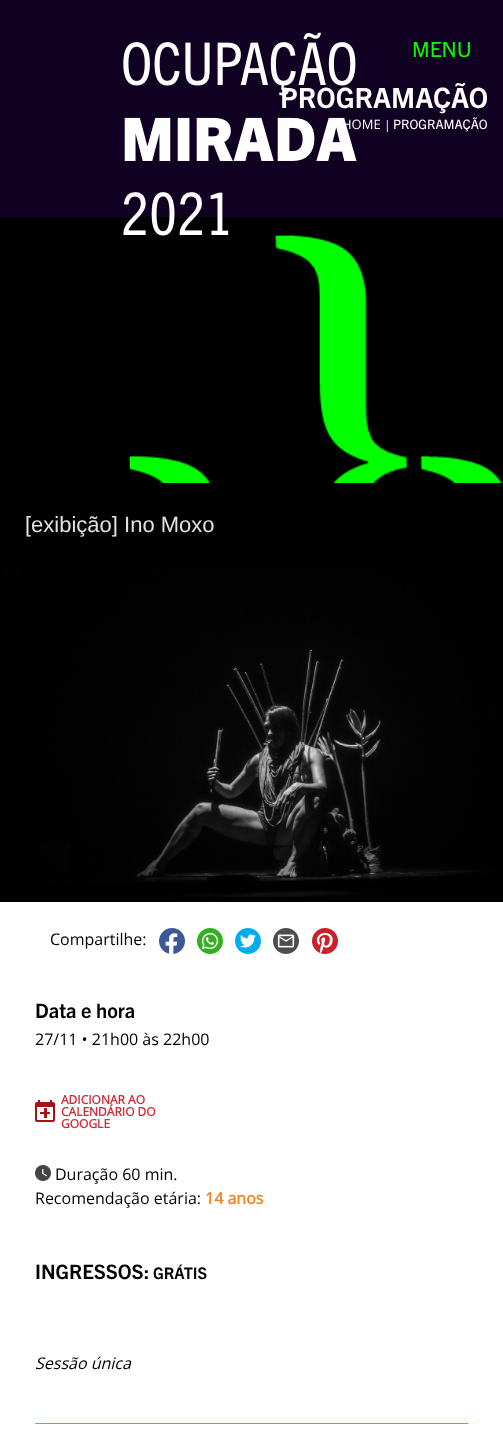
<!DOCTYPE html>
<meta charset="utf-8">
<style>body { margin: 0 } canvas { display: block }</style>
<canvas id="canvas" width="503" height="1430"></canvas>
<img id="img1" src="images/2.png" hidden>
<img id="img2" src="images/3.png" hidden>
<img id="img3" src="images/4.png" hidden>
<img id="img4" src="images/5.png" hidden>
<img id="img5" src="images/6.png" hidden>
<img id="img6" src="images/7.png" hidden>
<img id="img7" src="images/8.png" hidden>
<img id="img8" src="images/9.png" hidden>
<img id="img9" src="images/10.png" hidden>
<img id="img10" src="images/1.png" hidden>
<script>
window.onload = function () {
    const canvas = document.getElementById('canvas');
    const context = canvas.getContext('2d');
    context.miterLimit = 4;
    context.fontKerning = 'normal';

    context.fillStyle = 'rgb(255, 255, 255)';
    context.fillRect(0, 0, 503, 1430);
    context.fillStyle = 'rgb(16, 1, 35)';
    context.fillRect(0, 0, 503, 217);
    context.fillStyle = 'rgb(0, 0, 0)';
    context.fillRect(0, 217, 503, 350);
    context.drawImage(document.getElementById('img1'), 129, 235, 373, 248);
    context.drawImage(document.getElementById('img2'), 0, 567, 503, 335);
    context.drawImage(document.getElementById('img3'), 159, 928, 26, 26);
    context.drawImage(document.getElementById('img4'), 197, 928, 26, 26);
    context.drawImage(document.getElementById('img5'), 235, 928, 26, 26);
    context.drawImage(document.getElementById('img6'), 273, 928, 26, 26);
    context.drawImage(document.getElementById('img7'), 312, 928, 26, 26);
    context.drawImage(document.getElementById('img8'), 35, 1100, 20, 22);
    context.drawImage(document.getElementById('img9'), 35, 1165, 16, 16);
    context.fillStyle = 'rgb(0, 255, 0)';
    context.fillRect(35, 1423, 433, 1);
    context.font = '21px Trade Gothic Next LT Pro';
    context.fillText('MENU', 412, 57);
    context.font = 'bold 28px Trade Gothic Next LT Pro';
    context.fillStyle = 'rgb(255, 255, 255)';
    context.fillText('PROGRAMAÇÃO', 280, 108);
    context.font = '13px Open Sans';
    context.fillText('HOME', 342, 129);
    context.drawImage(document.getElementById('img10'), 123, 32, 234, 204);
    context.font = '12px Open Sans';
    context.fillText('|', 384, 129);
    context.font = '13px Trade Gothic Next LT Pro';
    context.fillText('PROGRAMAÇÃO', 393, 129);
    context.font = '22px Liberation Sans';
    context.fillStyle = 'rgb(229, 223, 226)';
    context.fillText('[exibição] Ino Moxo', 25, 532);
    context.font = '16px Open Sans';
    context.fillStyle = 'rgb(0, 0, 0)';
    context.fillText('Compartilhe:', 50, 945);
    context.font = 'bold 20px Trade Gothic Next LT Pro';
    context.fillText('Data e hora', 35, 1018);
    context.font = '16px Open Sans';
    context.fillText('27/11 • 21h00 às 22h00', 35, 1045);
    context.font = 'bold 12px Open Sans';
    context.fillStyle = 'rgb(210, 42, 56)';
    context.fillText('ADICIONAR AO', 61, 1104);
    context.fillText('CALENDÁRIO DO', 61, 1116);
    context.fillText('GOOGLE', 61, 1128);
    context.font = '16px Open Sans';
    context.fillStyle = 'rgb(0, 0, 0)';
    context.fillText('Duração 60 min.', 55, 1180);
    context.fillText('Recomendação etária:', 35, 1204);
    context.font = 'bold 16px Open Sans';
    context.fillStyle = 'rgb(246, 129, 31)';
    context.fillText('14 anos', 205, 1204);
    context.font = 'bold 20px Trade Gothic Next LT Pro';
    context.fillStyle = 'rgb(0, 0, 0)';
    context.fillText('INGRESSOS:', 35, 1279);
    context.font = 'bold 16px Trade Gothic Next LT Pro';
    context.fillText('GRÁTIS', 153, 1279);
    context.font = 'italic 16px Open Sans';
    context.fillText('Sessão única', 35, 1369);
};
</script>
